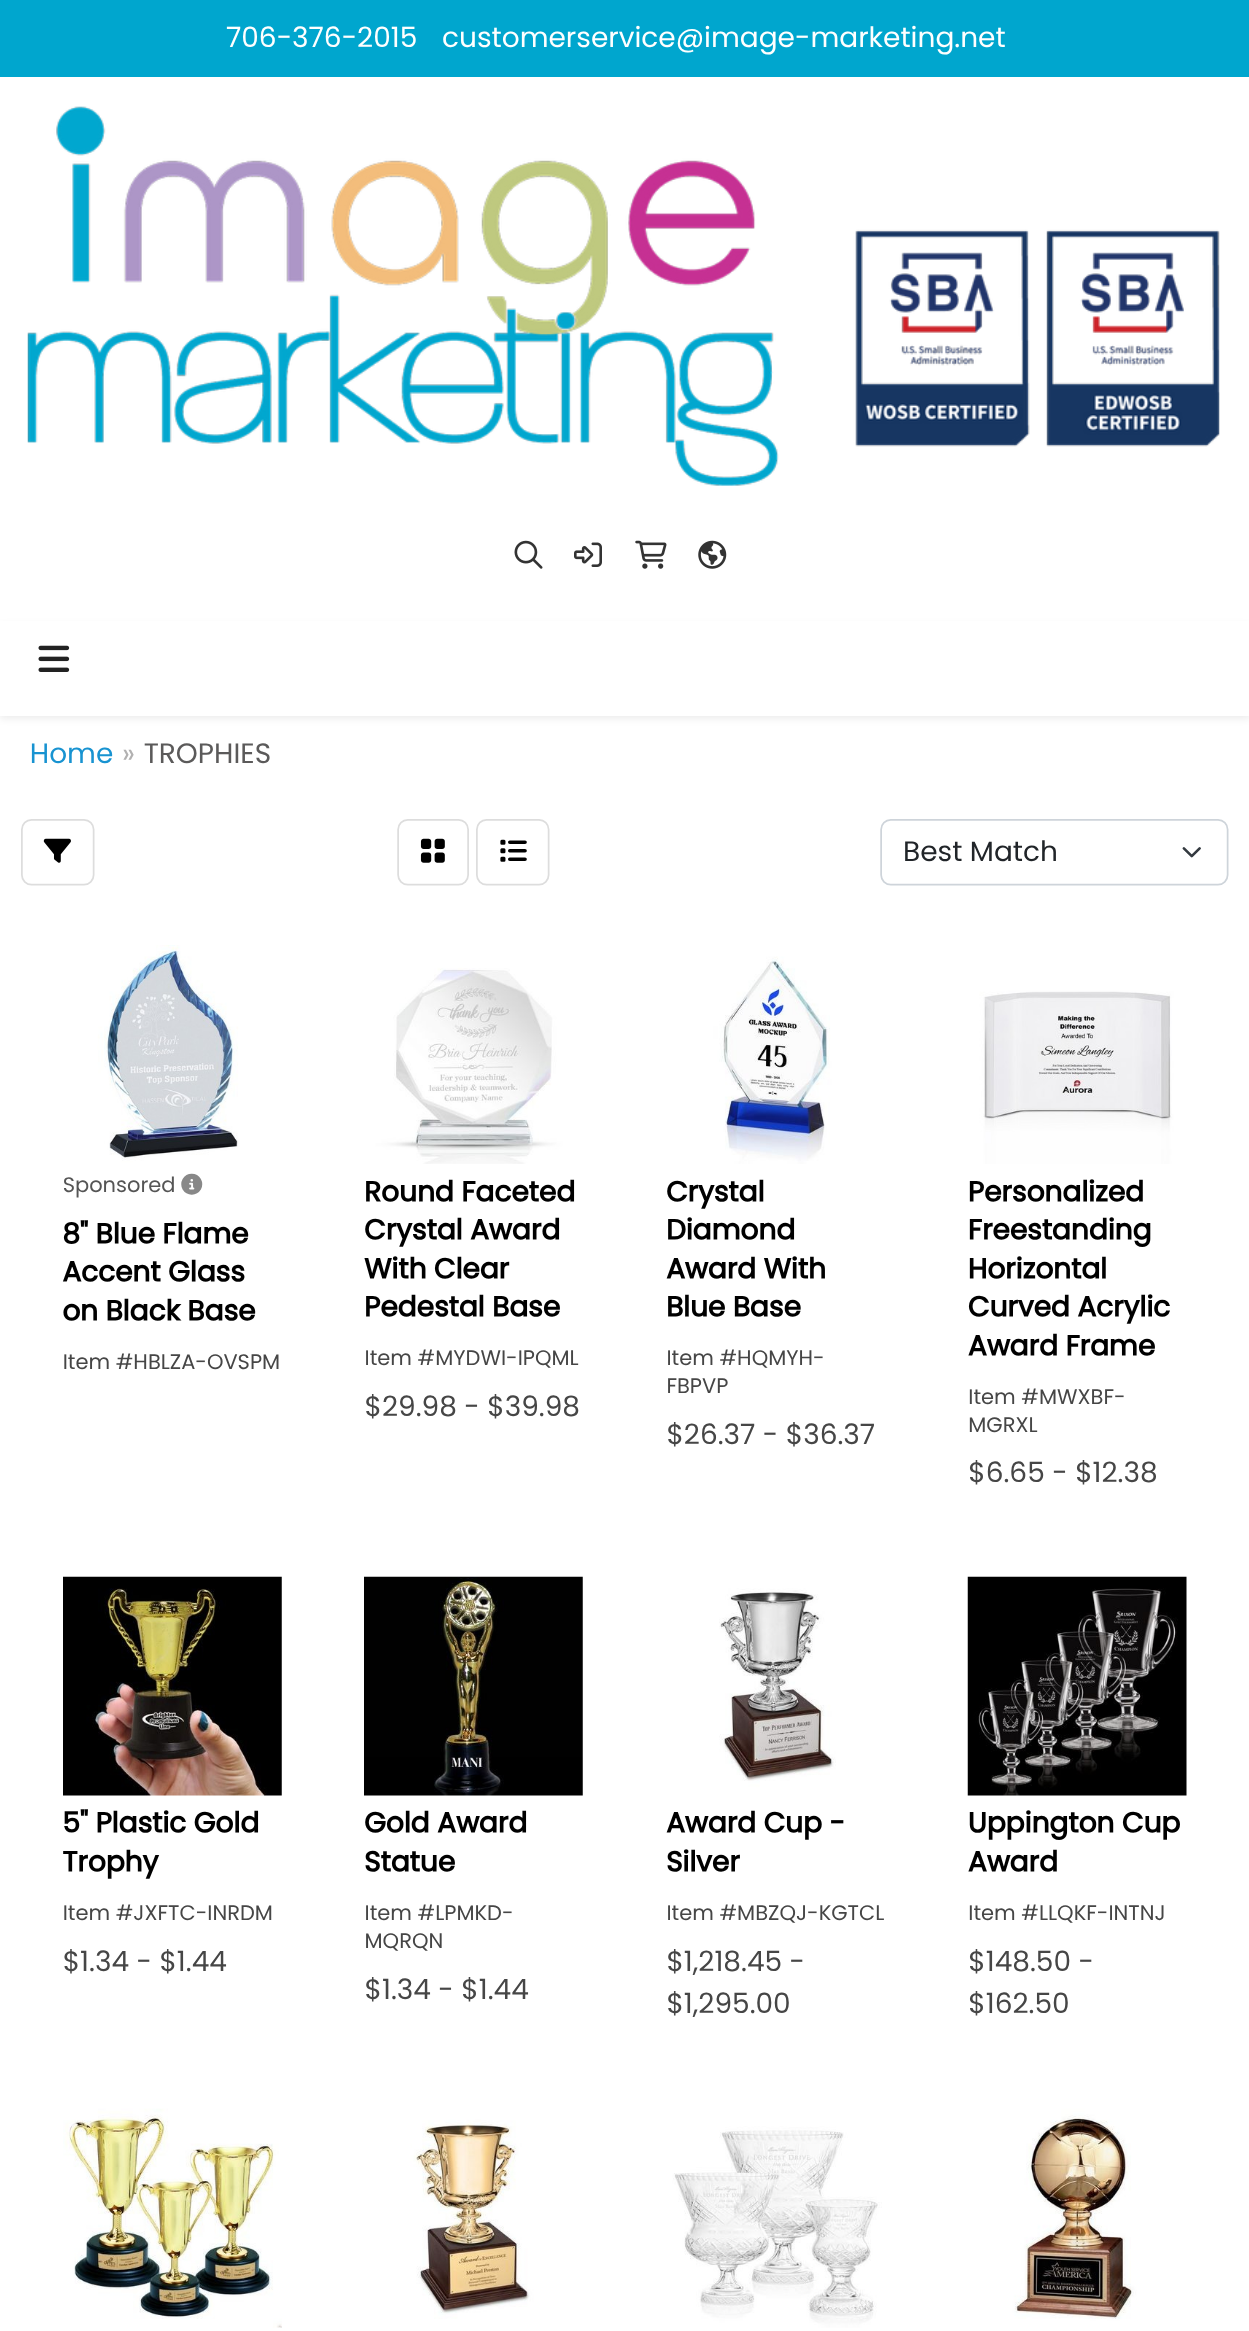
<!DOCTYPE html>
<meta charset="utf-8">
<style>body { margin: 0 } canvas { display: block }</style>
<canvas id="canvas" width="1249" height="2331"></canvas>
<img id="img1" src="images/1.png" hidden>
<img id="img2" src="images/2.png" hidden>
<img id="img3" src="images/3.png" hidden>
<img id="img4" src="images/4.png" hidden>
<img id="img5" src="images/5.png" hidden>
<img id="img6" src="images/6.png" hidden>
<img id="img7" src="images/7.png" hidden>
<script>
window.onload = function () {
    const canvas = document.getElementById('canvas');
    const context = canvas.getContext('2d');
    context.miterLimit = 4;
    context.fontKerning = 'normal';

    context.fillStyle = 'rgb(255, 255, 255)';
    context.fillRect(0, 0, 1249, 2331);
    context.fillStyle = 'rgb(0, 166, 206)';
    context.fillRect(0, 0, 1249, 77);
    context.drawImage(document.getElementById('img1'), 27, 106, 1193, 380);
    context.drawImage(document.getElementById('img2'), 514, 540, 29, 29);
    context.drawImage(document.getElementById('img3'), 574, 542, 28, 25);
    context.drawImage(document.getElementById('img4'), 635, 540, 32, 29);
    context.drawImage(document.getElementById('img5'), 698, 540, 29, 29);
    context.fillStyle = 'rgba(0, 0, 0, 0.07)';
    context.filter = 'blur(3.5px)';
    context.beginPath();
    context.rect(0, 625, 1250, 94);
    context.fill();
    context.filter = 'none';
    context.fillStyle = 'rgb(255, 255, 255)';
    context.fillRect(0, 621, 1249, 95);
    context.drawImage(document.getElementById('img6'), 38, 645, 32, 27);
    context.drawImage(document.getElementById('img7'), 21, 743, 1208, 1585);
    context.font = '28px Poppins';
    context.fillText('706-376-2015', 226, 47);
    context.fillText('customerservice@image-marketing.net', 442, 47);
};
</script>
